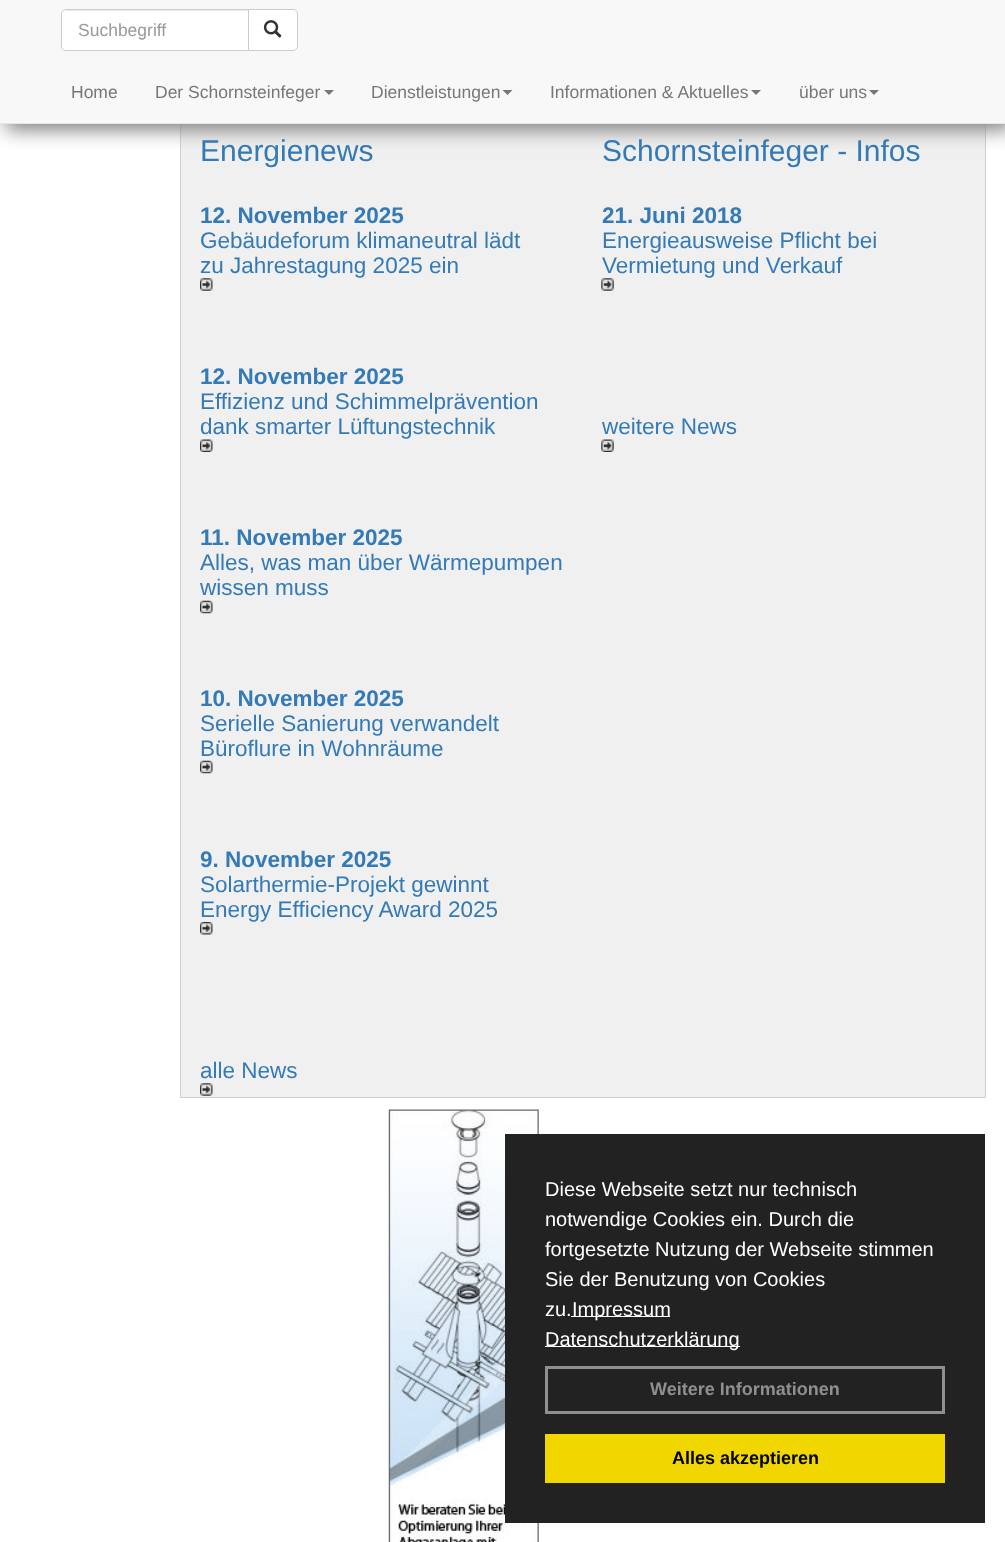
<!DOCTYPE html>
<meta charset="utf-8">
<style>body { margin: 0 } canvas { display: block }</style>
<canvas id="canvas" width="1005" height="1542"></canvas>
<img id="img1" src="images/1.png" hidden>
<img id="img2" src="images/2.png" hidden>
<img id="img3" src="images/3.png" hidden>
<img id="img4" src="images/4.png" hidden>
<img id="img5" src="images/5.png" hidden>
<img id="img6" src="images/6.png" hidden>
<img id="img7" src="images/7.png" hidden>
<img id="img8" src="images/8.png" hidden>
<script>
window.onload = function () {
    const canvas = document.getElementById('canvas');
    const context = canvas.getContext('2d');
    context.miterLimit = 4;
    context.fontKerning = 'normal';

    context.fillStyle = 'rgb(255, 255, 255)';
    context.fillRect(0, 0, 1005, 1542);
    context.fillStyle = 'rgb(240, 240, 240)';
    context.fillRect(181, 124, 804, 973);
    context.strokeStyle = 'rgb(208, 208, 208)';
    context.strokeRect(180.5, 109.5, 805, 988);
    context.fillStyle = 'rgb(128, 128, 128)';
    context.filter = 'blur(9.5px)';
    context.beginPath();
    context.rect(6, 6, 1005, 124);
    context.fill();
    context.filter = 'none';
    context.fillStyle = 'rgb(248, 248, 248)';
    context.fillRect(0, 0, 1005, 123);
    context.fillStyle = 'rgb(231, 231, 231)';
    context.fillRect(0, 123, 1005, 1);
    context.fillStyle = 'rgb(255, 255, 255)';
    context.beginPath();
    context.roundRect(61, 9, 188, 42, [5, 0, 0, 5]);
    context.fill();
    context.fillStyle = 'rgb(236, 236, 236)';
    context.beginPath();
    context.moveTo(66, 11);
    context.lineTo(248, 11);
    context.lineTo(248, 10);
    context.lineTo(67, 10);
    context.bezierCurveTo(66, 10, 64, 11, 64, 12);
    context.closePath();
    context.fill();
    context.beginPath();
    context.roundRect(61.5, 9.5, 187, 41, [4.5, 0, 0, 4.5]);
    context.strokeStyle = 'rgb(204, 204, 204)';
    context.stroke();
    context.fillStyle = 'rgb(255, 255, 255)';
    context.beginPath();
    context.roundRect(248.5, 9.5, 49, 41, [0, 4.5, 4.5, 0]);
    context.fill();
    context.stroke();
    context.drawImage(document.getElementById('img1'), 263, 20, 19, 18);
    context.fillStyle = 'rgb(119, 119, 119)';
    context.beginPath();
    context.moveTo(324, 90);
    context.lineTo(334, 90);
    context.lineTo(329, 95);
    context.closePath();
    context.fill();
    context.beginPath();
    context.moveTo(502.5, 90);
    context.lineTo(512.5, 90);
    context.lineTo(507.5, 95);
    context.closePath();
    context.fill();
    context.beginPath();
    context.moveTo(751, 90);
    context.lineTo(761, 90);
    context.lineTo(756, 95);
    context.closePath();
    context.fill();
    context.beginPath();
    context.moveTo(869, 90);
    context.lineTo(879, 90);
    context.lineTo(874, 95);
    context.closePath();
    context.fill();
    context.drawImage(document.getElementById('img2'), 200, 278, 13, 13);
    context.drawImage(document.getElementById('img3'), 200, 439, 13, 13);
    context.drawImage(document.getElementById('img4'), 200, 600, 13, 14);
    context.drawImage(document.getElementById('img4'), 200, 760, 13, 14);
    context.drawImage(document.getElementById('img5'), 200, 922, 13, 13);
    context.drawImage(document.getElementById('img2'), 200, 1083, 13, 13);
    context.drawImage(document.getElementById('img6'), 601, 278, 13, 13);
    context.drawImage(document.getElementById('img7'), 601, 439, 13, 13);
    context.drawImage(document.getElementById('img8'), 388, 1109, 151, 433);
    context.fillStyle = 'rgb(34, 34, 34)';
    context.fillRect(505, 1134, 480, 389);
    context.fillStyle = 'rgb(255, 255, 255)';
    context.fillRect(571, 1316, 99, 1);
    context.fillRect(545, 1346, 195, 1);
    context.strokeStyle = 'rgb(143, 143, 143)';
    context.lineWidth = 3;
    context.strokeRect(546.5, 1367.5, 397, 45);
    context.fillStyle = 'rgb(241, 214, 0)';
    context.fillRect(545, 1434, 400, 49);
    context.font = '17.5px Liberation Sans';
    context.fillStyle = 'rgb(153, 153, 153)';
    context.fillText('Suchbegriff', 78, 36);
    context.fillStyle = 'rgb(119, 119, 119)';
    context.fillText('Home', 71, 98);
    context.fillText('Der Schornsteinfeger', 155, 98);
    context.fillText('Dienstleistungen', 371, 98);
    context.fillText('Informationen & Aktuelles', 550, 98);
    context.fillText('über uns', 799, 98);
    context.font = '30px Liberation Sans';
    context.fillStyle = 'rgb(51, 122, 183)';
    context.fillText('Energienews', 200, 161);
    context.font = 'bold 22.5px Liberation Sans';
    context.fillText('12. November 2025', 200, 223);
    context.font = '22.5px Liberation Sans';
    context.fillText('Gebäudeforum klimaneutral lädt', 200, 248);
    context.fillText('zu Jahrestagung 2025 ein', 200, 273);
    context.font = 'bold 22.5px Liberation Sans';
    context.fillText('12. November 2025', 200, 384);
    context.font = '22.5px Liberation Sans';
    context.fillText('Effizienz und Schimmelprävention', 200, 409);
    context.fillText('dank smarter Lüftungstechnik', 200, 434);
    context.font = 'bold 22.5px Liberation Sans';
    context.fillText('11. November 2025', 200, 545);
    context.font = '22.5px Liberation Sans';
    context.fillText('Alles, was man über Wärmepumpen', 200, 570);
    context.fillText('wissen muss', 200, 595);
    context.font = 'bold 22.5px Liberation Sans';
    context.fillText('10. November 2025', 200, 706);
    context.font = '22.5px Liberation Sans';
    context.fillText('Serielle Sanierung verwandelt', 200, 731);
    context.fillText('Büroflure in Wohnräume', 200, 756);
    context.font = 'bold 22.5px Liberation Sans';
    context.fillText('9. November 2025', 200, 867);
    context.font = '22.5px Liberation Sans';
    context.fillText('Solarthermie-Projekt gewinnt', 200, 892);
    context.fillText('Energy Efficiency Award 2025', 200, 917);
    context.fillText('alle News', 200, 1078);
    context.font = '30px Liberation Sans';
    context.fillText('Schornsteinfeger - Infos', 602, 161);
    context.font = 'bold 22.5px Liberation Sans';
    context.fillText('21. Juni 2018', 602, 223);
    context.font = '22.5px Liberation Sans';
    context.fillText('Energieausweise Pflicht bei', 602, 248);
    context.fillText('Vermietung und Verkauf', 602, 273);
    context.fillText('weitere News', 602, 434);
    context.font = '20px Liberation Sans';
    context.fillStyle = 'rgb(255, 255, 255)';
    context.fillText('Diese Webseite setzt nur technisch', 545, 1196);
    context.fillText('notwendige Cookies ein. Durch die', 545, 1226);
    context.fillText('fortgesetzte Nutzung der Webseite stimmen', 545, 1256);
    context.fillText('Sie der Benutzung von Cookies', 545, 1286);
    context.fillText('zu.', 545, 1316);
    context.fillText('Impressum', 572, 1316);
    context.fillText('Datenschutzerklärung', 545, 1346);
    context.font = 'bold 18px Liberation Sans';
    context.fillStyle = 'rgb(143, 143, 143)';
    context.fillText('Weitere Informationen', 650, 1395);
    context.fillStyle = 'rgb(0, 0, 0)';
    context.fillText('Alles akzeptieren', 672, 1464);
};
</script>
